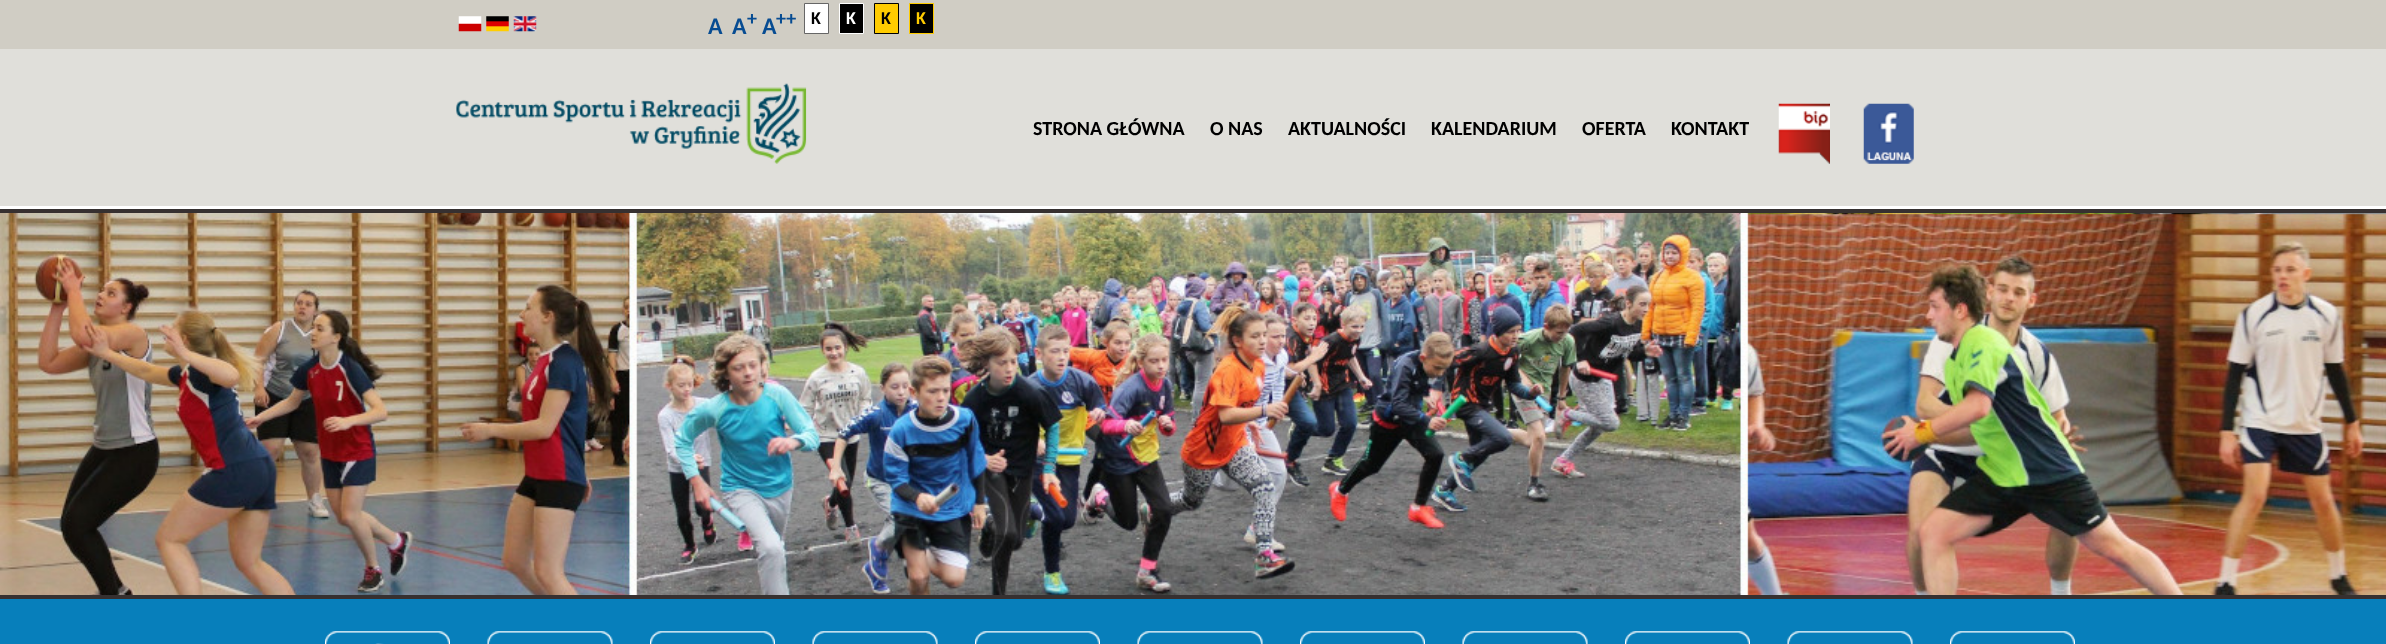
<!DOCTYPE html>
<meta charset="utf-8">
<style>body { margin: 0 } canvas { display: block }</style>
<canvas id="canvas" width="2386" height="644"></canvas>
<img id="img1" src="images/1.png" hidden>
<img id="img2" src="images/2.png" hidden>
<img id="img3" src="images/3.png" hidden>
<img id="img4" src="images/4.png" hidden>
<img id="img5" src="images/5.png" hidden>
<img id="img6" src="images/6.png" hidden>
<img id="img7" src="images/7.png" hidden>
<img id="img8" src="images/8.png" hidden>
<img id="img9" src="images/9.png" hidden>
<img id="img10" src="images/10.png" hidden>
<img id="img11" src="images/11.png" hidden>
<img id="img12" src="images/12.png" hidden>
<img id="img13" src="images/13.png" hidden>
<img id="img14" src="images/14.png" hidden>
<script>
window.onload = function () {
    const canvas = document.getElementById('canvas');
    const context = canvas.getContext('2d');
    context.miterLimit = 4;
    context.fontKerning = 'normal';

    context.fillStyle = 'rgb(255, 255, 255)';
    context.fillRect(0, 0, 2386, 644);
    context.fillStyle = 'rgb(208, 205, 196)';
    context.fillRect(0, 0, 2386, 49);
    context.drawImage(document.getElementById('img1'), 458, 16, 24, 16);
    context.drawImage(document.getElementById('img2'), 486, 16, 23, 16);
    context.drawImage(document.getElementById('img3'), 513, 16, 24, 16);
    context.fillStyle = 'rgb(255, 255, 255)';
    context.beginPath();
    context.rect(804.5, 3.5, 24, 30);
    context.fill();
    context.strokeStyle = 'rgb(102, 102, 102)';
    context.stroke();
    context.fillStyle = 'rgb(0, 0, 0)';
    context.beginPath();
    context.rect(839.5, 3.5, 24, 30);
    context.fill();
    context.strokeStyle = 'rgb(255, 255, 255)';
    context.stroke();
    context.fillStyle = 'rgb(255, 204, 0)';
    context.beginPath();
    context.rect(874.5, 3.5, 24, 30);
    context.fill();
    context.strokeStyle = 'rgb(0, 0, 0)';
    context.stroke();
    context.fillStyle = 'rgb(0, 0, 0)';
    context.beginPath();
    context.rect(909.5, 3.5, 24, 30);
    context.fill();
    context.strokeStyle = 'rgb(255, 204, 0)';
    context.stroke();
    context.fillStyle = 'rgb(224, 223, 218)';
    context.fillRect(0, 49, 2386, 157);
    context.drawImage(document.getElementById('img4'), 456, 83, 351, 81);
    context.drawImage(document.getElementById('img5'), 1778, 103, 52, 61);
    context.drawImage(document.getElementById('img6'), 1863, 103, 51, 61);
    context.drawImage(document.getElementById('img7'), 0, 213, 2386, 382);
    context.fillStyle = 'rgb(54, 48, 48)';
    context.fillRect(0, 209, 2386, 4);
    context.fillRect(0, 595, 2386, 4);
    context.fillStyle = 'rgb(7, 127, 187)';
    context.fillRect(0, 599, 2386, 45);
    context.drawImage(document.getElementById('img8'), 325, 631, 125, 13);
    context.drawImage(document.getElementById('img9'), 487, 631, 126, 13);
    context.drawImage(document.getElementById('img10'), 650, 631, 125, 13);
    context.drawImage(document.getElementById('img11'), 812, 631, 126, 13);
    context.drawImage(document.getElementById('img12'), 975, 631, 125, 13);
    context.drawImage(document.getElementById('img13'), 1137, 631, 126, 13);
    context.drawImage(document.getElementById('img12'), 1300, 631, 125, 13);
    context.drawImage(document.getElementById('img9'), 1462, 631, 126, 13);
    context.drawImage(document.getElementById('img14'), 1625, 631, 125, 13);
    context.drawImage(document.getElementById('img9'), 1787, 631, 126, 13);
    context.drawImage(document.getElementById('img12'), 1950, 631, 125, 13);
    context.font = 'bold 24px Carlito';
    context.fillStyle = 'rgb(7, 76, 146)';
    context.fillText('A', 708, 34);
    context.fillText('A', 732, 34);
    context.font = 'bold 20px Carlito';
    context.fillText('+', 747, 25);
    context.font = 'bold 24px Carlito';
    context.fillText('A', 762, 34);
    context.font = 'bold 20px Carlito';
    context.fillText('++', 776, 25);
    context.font = 'bold 18px Carlito';
    context.fillStyle = 'rgb(0, 0, 0)';
    context.fillText('K', 811, 24);
    context.fillStyle = 'rgb(255, 255, 255)';
    context.fillText('K', 846, 24);
    context.fillStyle = 'rgb(0, 0, 0)';
    context.fillText('K', 881, 24);
    context.fillStyle = 'rgb(255, 204, 0)';
    context.fillText('K', 916, 24);
    context.font = 'bold 20px Carlito';
    context.fillStyle = 'rgb(0, 0, 0)';
    context.fillText('STRONA GŁÓWNA', 1033, 135);
    context.fillText('O NAS', 1210, 135);
    context.fillText('AKTUALNOŚCI', 1288, 135);
    context.fillText('KALENDARIUM', 1431, 135);
    context.fillText('OFERTA', 1582, 135);
    context.fillText('KONTAKT', 1671, 135);
};
</script>
